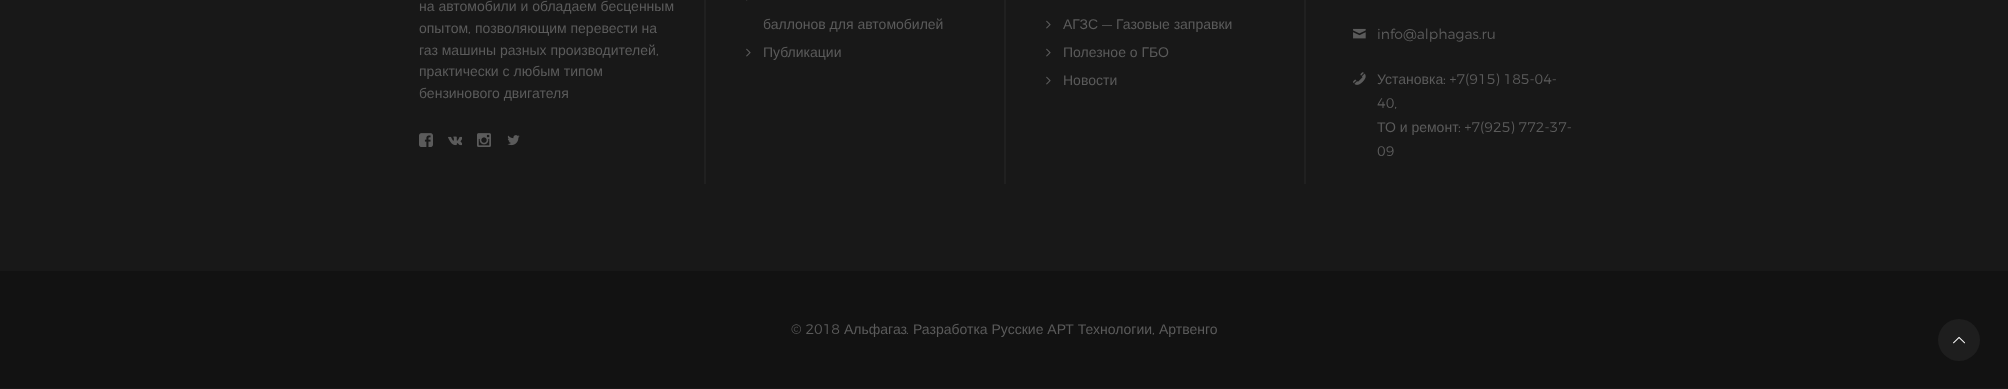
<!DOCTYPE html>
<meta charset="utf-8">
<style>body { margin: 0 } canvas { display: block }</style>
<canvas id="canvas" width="2008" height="389"></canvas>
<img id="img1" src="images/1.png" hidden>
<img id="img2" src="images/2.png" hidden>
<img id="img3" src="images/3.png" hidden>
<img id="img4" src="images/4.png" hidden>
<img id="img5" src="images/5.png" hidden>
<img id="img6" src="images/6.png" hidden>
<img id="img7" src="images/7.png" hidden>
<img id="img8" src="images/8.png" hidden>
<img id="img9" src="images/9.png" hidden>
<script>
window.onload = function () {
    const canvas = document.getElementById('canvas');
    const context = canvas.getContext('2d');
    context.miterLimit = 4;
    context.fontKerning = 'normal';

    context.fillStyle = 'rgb(24, 24, 24)';
    context.fillRect(0, 0, 2008, 389);
    context.drawImage(document.getElementById('img1'), 419, 133, 14, 14);
    context.drawImage(document.getElementById('img2'), 448, 136, 14, 10);
    context.drawImage(document.getElementById('img3'), 477, 133, 14, 14);
    context.drawImage(document.getElementById('img4'), 507, 135, 13, 11);
    context.fillStyle = 'rgb(32, 32, 32)';
    context.fillRect(704, 0, 2, 184);
    context.drawImage(document.getElementById('img5'), 746, 0, 2, 1);
    context.drawImage(document.getElementById('img6'), 746, 48, 5, 9);
    context.fillRect(1004, 0, 2, 184);
    context.drawImage(document.getElementById('img6'), 1046, 20, 5, 9);
    context.drawImage(document.getElementById('img6'), 1046, 48, 5, 9);
    context.drawImage(document.getElementById('img6'), 1046, 76, 5, 9);
    context.fillRect(1304, 0, 2, 184);
    context.drawImage(document.getElementById('img7'), 1353, 28, 13, 11);
    context.drawImage(document.getElementById('img8'), 1353, 72, 13, 13);
    context.fillStyle = 'rgb(18, 18, 18)';
    context.fillRect(0, 271, 2008, 117);
    context.fillStyle = 'rgb(30, 30, 30)';
    context.beginPath();
    context.arc(1959, 340, 21, 0, 2 * Math.PI);
    context.fill();
    context.drawImage(document.getElementById('img9'), 1953, 336, 12, 8);
    context.font = '14px Liberation Sans';
    context.fillStyle = 'rgb(91, 91, 91)';
    context.fillText('на автомобили и обладаем бесценным', 419, 11);
    context.fillText('опытом', 419, 33);
    context.font = '300 14px Montserrat';
    context.fillText(',', 468, 33);
    context.font = '14px Liberation Sans';
    context.fillText('позволяющим перевести на', 475, 33);
    context.fillText('газ машины разных производителей', 419, 55);
    context.font = '300 14px Montserrat';
    context.fillText(',', 656, 55);
    context.font = '14px Liberation Sans';
    context.fillText('практически с любым типом', 419, 76);
    context.fillText('бензинового двигателя', 419, 98);
    context.fillText('баллонов для автомобилей', 763, 29);
    context.fillText('Публикации', 763, 57);
    context.fillText('АГЗС', 1063, 29);
    context.font = '300 14px Montserrat';
    context.fillText('—', 1102, 29);
    context.font = '14px Liberation Sans';
    context.fillText('Газовые заправки', 1116, 29);
    context.fillText('Полезное о ГБО', 1063, 57);
    context.fillText('Новости', 1063, 85);
    context.font = '300 14px Montserrat';
    context.fillText('info@alphagas.ru', 1377, 39);
    context.font = '14px Liberation Sans';
    context.fillText('Установка', 1377, 84);
    context.font = '300 14px Montserrat';
    context.fillText(': +7(915) 185-04-', 1443, 84);
    context.fillText('40,', 1377, 108);
    context.font = '14px Liberation Sans';
    context.fillText('ТО и ремонт', 1377, 132);
    context.font = '300 14px Montserrat';
    context.fillText(': +7(925) 772-37-', 1458, 132);
    context.fillText('09', 1377, 156);
    context.fillText('© 2018', 791, 334);
    context.font = '14px Liberation Sans';
    context.fillText('Альфагаз', 844, 334);
    context.font = '300 14px Montserrat';
    context.fillText('.', 906, 334);
    context.font = '14px Liberation Sans';
    context.fillText('Разработка Русские АРТ Технологии', 913, 334);
    context.font = '300 14px Montserrat';
    context.fillText(',', 1152, 334);
    context.font = '14px Liberation Sans';
    context.fillText('Артвенго', 1159, 334);
};
</script>
